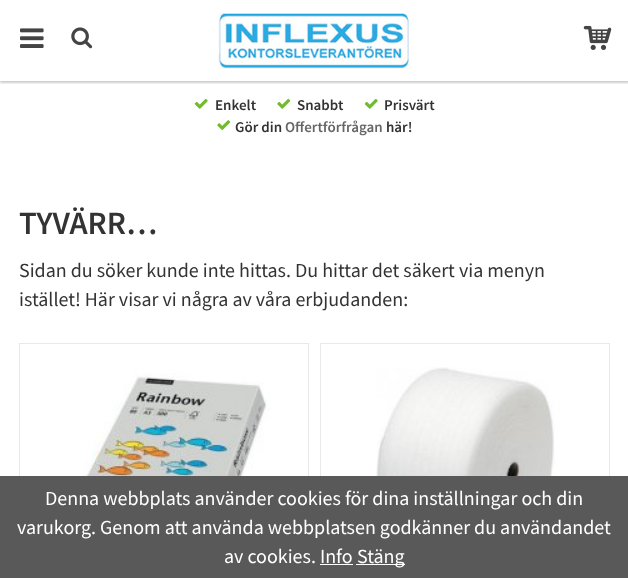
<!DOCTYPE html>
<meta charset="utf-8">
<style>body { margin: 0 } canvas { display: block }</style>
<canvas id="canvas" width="628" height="578"></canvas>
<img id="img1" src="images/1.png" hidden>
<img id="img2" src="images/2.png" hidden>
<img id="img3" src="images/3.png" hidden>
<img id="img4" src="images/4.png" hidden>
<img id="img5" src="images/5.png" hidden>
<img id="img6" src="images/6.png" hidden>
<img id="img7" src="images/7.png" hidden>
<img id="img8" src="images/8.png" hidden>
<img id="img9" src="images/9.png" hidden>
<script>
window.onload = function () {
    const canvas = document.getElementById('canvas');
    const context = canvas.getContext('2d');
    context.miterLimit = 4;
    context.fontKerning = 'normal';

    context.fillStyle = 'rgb(255, 255, 255)';
    context.fillRect(0, 0, 628, 578);
    context.save();
    context.beginPath();
    context.rect(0, 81, 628, 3);
    context.clip();
    context.fillStyle = 'rgba(0, 0, 0, 0.2)';
    context.filter = 'blur(1px)';
    context.beginPath();
    context.rect(0, 1, 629, 82);
    context.fill();
    context.filter = 'none';
    context.restore();
    context.drawImage(document.getElementById('img1'), 20, 28, 24, 20);
    context.drawImage(document.getElementById('img2'), 71, 27, 22, 22);
    context.drawImage(document.getElementById('img3'), 218, 13, 192, 56);
    context.drawImage(document.getElementById('img4'), 583, 25, 29, 25);
    context.drawImage(document.getElementById('img5'), 194, 98, 14, 11);
    context.drawImage(document.getElementById('img6'), 277, 98, 14, 11);
    context.drawImage(document.getElementById('img5'), 364, 98, 14, 11);
    context.drawImage(document.getElementById('img7'), 217, 120, 14, 10);
    context.strokeStyle = 'rgb(233, 233, 233)';
    context.strokeRect(19.5, 343.5, 289, 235);
    context.drawImage(document.getElementById('img8'), 55, 373, 216, 103);
    context.strokeRect(320.5, 343.5, 289, 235);
    context.drawImage(document.getElementById('img9'), 376, 367, 179, 109);
    context.fillStyle = 'rgb(89, 89, 89)';
    context.fillRect(0, 476, 628, 102);
    context.fillStyle = 'rgb(255, 255, 255)';
    context.fillRect(356, 564, 49, 1);
    context.fillRect(320, 564, 33, 1);
    context.font = '600 15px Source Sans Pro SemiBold';
    context.fillStyle = 'rgb(51, 51, 51)';
    context.fillText('Enkelt', 215, 110);
    context.fillText('Snabbt', 297, 110);
    context.fillText('Prisvärt', 384, 110);
    context.fillText('Gör din', 235, 132);
    context.fillStyle = 'rgb(102, 102, 102)';
    context.fillText('Offertförfrågan', 285, 132);
    context.fillStyle = 'rgb(51, 51, 51)';
    context.fillText('här!', 386, 132);
    context.font = '600 32.5px Source Sans Pro SemiBold';
    context.fillText('TYVÄRR…', 19, 234);
    context.font = '20px Source Sans Pro';
    context.fillText('Sidan du söker kunde inte hittas. Du hittar det säkert via menyn', 19, 277);
    context.fillText('istället! Här visar vi några av våra erbjudanden:', 19, 306);
    context.fillStyle = 'rgb(255, 255, 255)';
    context.fillText('Denna webbplats använder cookies för dina inställningar och din', 45, 505);
    context.fillText('varukorg. Genom att använda webbplatsen godkänner du användandet', 17, 534);
    context.fillText('av cookies. Info', 224, 563);
    context.fillText('Stäng', 357, 563);
};
</script>
